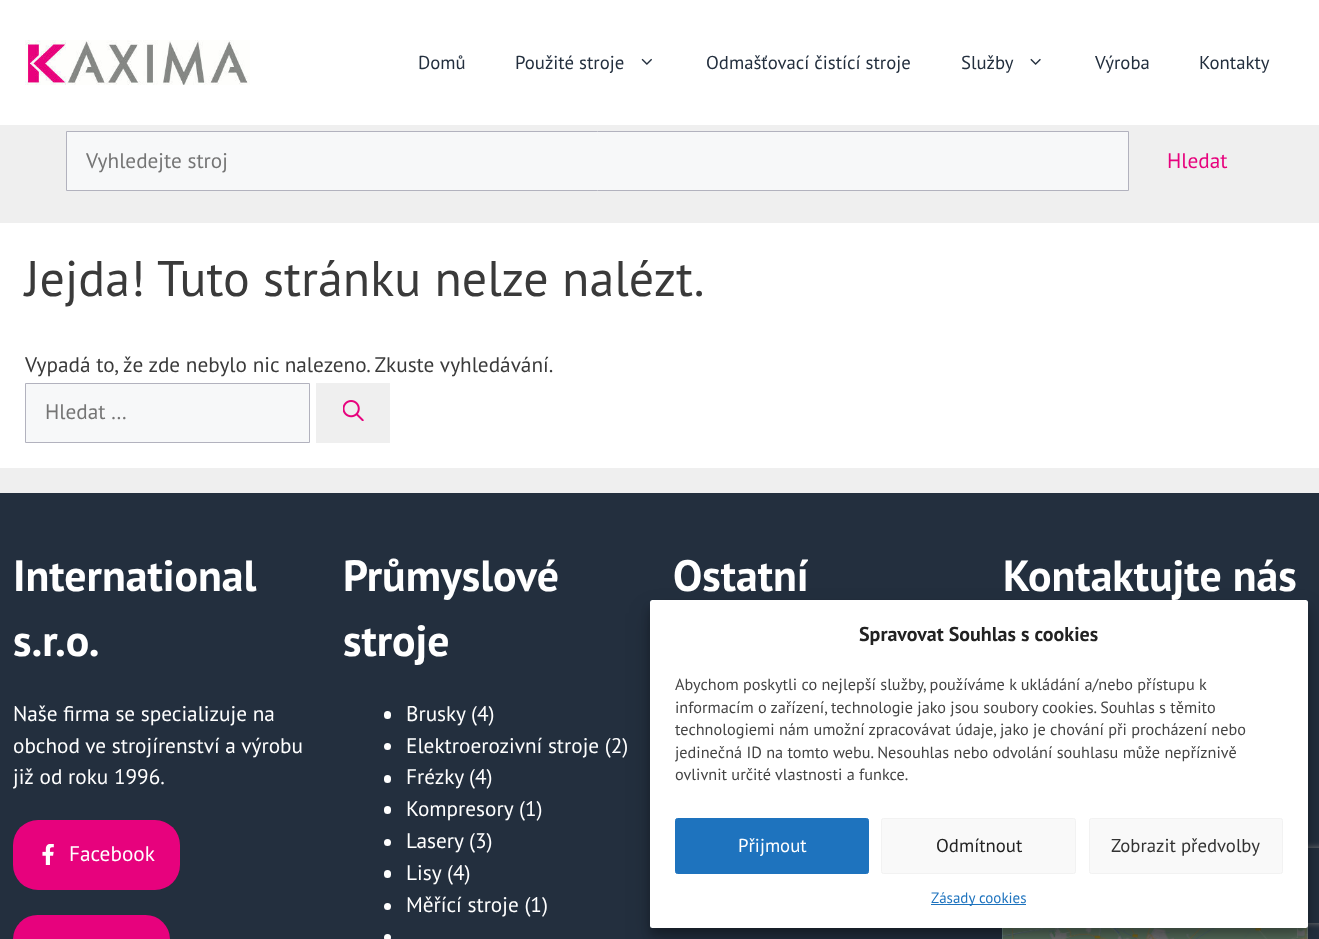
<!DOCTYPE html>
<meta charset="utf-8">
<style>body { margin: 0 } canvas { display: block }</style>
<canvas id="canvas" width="1319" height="939"></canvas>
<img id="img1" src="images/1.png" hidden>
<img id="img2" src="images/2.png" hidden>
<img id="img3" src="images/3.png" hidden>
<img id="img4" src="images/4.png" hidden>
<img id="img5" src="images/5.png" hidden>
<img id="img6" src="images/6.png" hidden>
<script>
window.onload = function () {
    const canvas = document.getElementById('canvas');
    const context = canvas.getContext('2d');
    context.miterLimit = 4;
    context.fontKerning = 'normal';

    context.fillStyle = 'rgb(239, 239, 239)';
    context.fillRect(0, 0, 1319, 939);
    context.fillStyle = 'rgb(255, 255, 255)';
    context.fillRect(0, 0, 1319, 125);
    context.drawImage(document.getElementById('img1'), 25, 40, 225, 45);
    context.drawImage(document.getElementById('img2'), 641, 58, 11, 7);
    context.drawImage(document.getElementById('img3'), 1030, 58, 11, 7);
    context.fillStyle = 'rgb(247, 248, 249)';
    context.beginPath();
    context.rect(66.5, 131.5, 1062, 59);
    context.fill();
    context.strokeStyle = 'rgb(178, 178, 190)';
    context.stroke();
    context.fillStyle = 'rgb(255, 255, 255)';
    context.fillRect(0, 223, 1319, 245);
    context.fillStyle = 'rgb(247, 248, 249)';
    context.beginPath();
    context.rect(25.5, 383.5, 284, 59);
    context.fill();
    context.stroke();
    context.fillStyle = 'rgb(239, 239, 239)';
    context.fillRect(316, 383, 74, 60);
    context.drawImage(document.getElementById('img4'), 343, 400, 21, 21);
    context.fillStyle = 'rgb(35, 47, 62)';
    context.fillRect(0, 493, 1319, 446);
    context.fillStyle = 'rgb(231, 2, 125)';
    context.beginPath();
    context.roundRect(13, 820, 167, 70, 25);
    context.fill();
    context.drawImage(document.getElementById('img5'), 42, 844, 12, 21);
    context.beginPath();
    context.roundRect(13, 915, 157, 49, 25);
    context.fill();
    context.fillStyle = 'rgb(255, 255, 255)';
    context.beginPath();
    context.roundRect(384, 711, 7, 8, 3.5);
    context.fill();
    context.beginPath();
    context.arc(387.5, 746.5, 3.5, 0, 2 * Math.PI);
    context.fill();
    context.beginPath();
    context.roundRect(384, 775, 7, 8, 3.5);
    context.fill();
    context.beginPath();
    context.roundRect(384, 806, 7, 8, 3.5);
    context.fill();
    context.beginPath();
    context.arc(387.5, 842.5, 3.5, 0, 2 * Math.PI);
    context.fill();
    context.beginPath();
    context.roundRect(384, 870, 7, 8, 3.5);
    context.fill();
    context.beginPath();
    context.arc(387.5, 906.5, 3.5, 0, 2 * Math.PI);
    context.fill();
    context.beginPath();
    context.arc(387.5, 937.5, 3.5, 0, 2 * Math.PI);
    context.fill();
    context.fillStyle = 'rgba(0, 0, 0, 0.5)';
    context.filter = 'blur(0.5px)';
    context.beginPath();
    context.roundRect(1003, 848, 305, 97, 4);
    context.fill();
    context.filter = 'none';
    context.fillStyle = 'rgb(255, 255, 255)';
    context.fillRect(1307, 925, 1, 14);
    context.drawImage(document.getElementById('img6'), 1002, 925, 306, 14);
    context.save();
    context.beginPath();
    context.moveTo(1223, 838);
    context.lineTo(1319, 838);
    context.lineTo(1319, 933);
    context.lineTo(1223, 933);
    context.closePath();
    context.moveTo(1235.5, 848);
    context.lineTo(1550.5, 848);
    context.bezierCurveTo(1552, 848, 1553, 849, 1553, 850.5);
    context.lineTo(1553, 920.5);
    context.bezierCurveTo(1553, 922, 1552, 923, 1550.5, 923);
    context.lineTo(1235.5, 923);
    context.bezierCurveTo(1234, 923, 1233, 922, 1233, 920.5);
    context.lineTo(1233, 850.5);
    context.bezierCurveTo(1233, 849, 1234, 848, 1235.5, 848);
    context.closePath();
    context.clip('evenodd');
    context.fillStyle = 'rgb(128, 128, 128)';
    context.filter = 'blur(3px)';
    context.beginPath();
    context.roundRect(1233, 848, 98, 75, 2.5);
    context.fill();
    context.filter = 'none';
    context.restore();
    context.fillStyle = 'rgba(0, 0, 0, 0.5)';
    context.fillRect(1003, 925, 305, 14);
    context.fillStyle = 'rgba(0, 0, 0, 0.23)';
    context.filter = 'blur(4px)';
    context.beginPath();
    context.roundRect(650, 608, 658, 327, 2.5);
    context.fill();
    context.filter = 'none';
    context.fillStyle = 'rgba(0, 0, 0, 0.19)';
    context.filter = 'blur(12.5px)';
    context.beginPath();
    context.roundRect(650, 613, 658, 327, 2.5);
    context.fill();
    context.filter = 'none';
    context.fillStyle = 'rgb(255, 255, 255)';
    context.beginPath();
    context.roundRect(650, 600, 658, 328, 2.5);
    context.fill();
    context.fillStyle = 'rgb(30, 115, 190)';
    context.beginPath();
    context.roundRect(675.5, 818.5, 193, 55, 2);
    context.fill();
    context.strokeStyle = 'rgb(30, 115, 190)';
    context.stroke();
    context.fillStyle = 'rgb(249, 249, 249)';
    context.beginPath();
    context.roundRect(881.5, 818.5, 194, 55, 2);
    context.fill();
    context.strokeStyle = 'rgb(242, 242, 242)';
    context.stroke();
    context.beginPath();
    context.roundRect(1089.5, 818.5, 193, 55, 2);
    context.fill();
    context.stroke();
    context.fillStyle = 'rgb(30, 115, 190)';
    context.fillRect(931, 904, 95, 1);
    context.font = '18.75px PT Sans';
    context.fillStyle = 'rgb(35, 47, 62)';
    context.fillText('Domů', 418, 69);
    context.fillText('Použité stroje', 515, 69);
    context.fillText('Odmašťovací čistící stroje', 706, 69);
    context.fillText('Služby', 961, 69);
    context.fillText('Výroba', 1095, 69);
    context.fillText('Kontakty', 1199, 69);
    context.font = '21.25px PT Sans';
    context.fillStyle = 'rgb(117, 117, 117)';
    context.fillText('Vyhledejte stroj', 86, 168);
    context.fillStyle = 'rgb(231, 2, 125)';
    context.fillText('Hledat', 1167, 168);
    context.font = '50px PT Sans';
    context.fillStyle = 'rgb(58, 58, 58)';
    context.fillText('Jejda! Tuto stránku nelze nalézt.', 25, 296);
    context.font = '21.25px PT Sans';
    context.fillText('Vypadá to, že zde nebylo nic nalezeno. Zkuste vyhledávání.', 25, 372);
    context.fillStyle = 'rgb(117, 117, 117)';
    context.fillText('Hledat …', 45, 419);
    context.font = 'bold 43.75px PT Sans';
    context.fillStyle = 'rgb(255, 255, 255)';
    context.fillText('International', 13, 591);
    context.fillText('s.r.o.', 13, 656);
    context.font = '21.25px PT Sans';
    context.fillText('Naše firma se specializuje na', 13, 721);
    context.fillText('obchod ve strojírenství a výrobu', 13, 753);
    context.fillText('již od roku 1996.', 13, 784);
    context.fillText('Facebook', 69, 861);
    context.font = 'bold 43.75px PT Sans';
    context.fillText('Průmyslové', 343, 591);
    context.fillText('stroje', 343, 656);
    context.font = '21.25px PT Sans';
    context.fillText('Brusky', 406, 721);
    context.fillText('(4)', 471, 721);
    context.fillText('Elektroerozivní stroje (2)', 406, 753);
    context.fillText('Frézky', 406, 784);
    context.fillText('(4)', 469, 784);
    context.fillText('Kompresory', 406, 816);
    context.fillText('(1)', 519, 816);
    context.fillText('Lasery', 406, 848);
    context.fillText('(3)', 469, 848);
    context.fillText('Lisy', 406, 880);
    context.fillText('(4)', 447, 880);
    context.fillText('Měřící stroje (1)', 406, 912);
    context.font = 'bold 43.75px PT Sans';
    context.fillText('Ostatní', 673, 591);
    context.fillText('Kontaktujte nás', 1003, 591);
    context.font = 'bold 20px PT Sans';
    context.fillStyle = 'rgb(34, 34, 34)';
    context.fillText('Spravovat Souhlas s cookies', 859, 641);
    context.font = '16.25px PT Sans';
    context.fillStyle = 'rgb(68, 68, 68)';
    context.fillText('Abychom poskytli co nejlepší služby, používáme k ukládání a/nebo přístupu k', 675, 690);
    context.fillText('informacím o zařízení, technologie jako jsou soubory cookies. Souhlas s těmito', 675, 713);
    context.fillText('technologiemi nám umožní zpracovávat údaje, jako je chování při procházení nebo', 675, 735);
    context.fillText('jedinečná ID na tomto webu. Nesouhlas nebo odvolání souhlasu může nepříznivě', 675, 758);
    context.fillText('ovlivnit určité vlastnosti a funkce.', 675, 780);
    context.font = '18.75px PT Sans';
    context.fillStyle = 'rgb(255, 255, 255)';
    context.fillText('Přijmout', 738, 852);
    context.fillStyle = 'rgb(34, 34, 34)';
    context.fillText('Odmítnout', 936, 852);
    context.fillStyle = 'rgb(51, 51, 51)';
    context.fillText('Zobrazit předvolby', 1111, 852);
    context.font = '15px PT Sans';
    context.fillStyle = 'rgb(30, 115, 190)';
    context.fillText('Zásady cookies', 931, 903);
};
</script>
